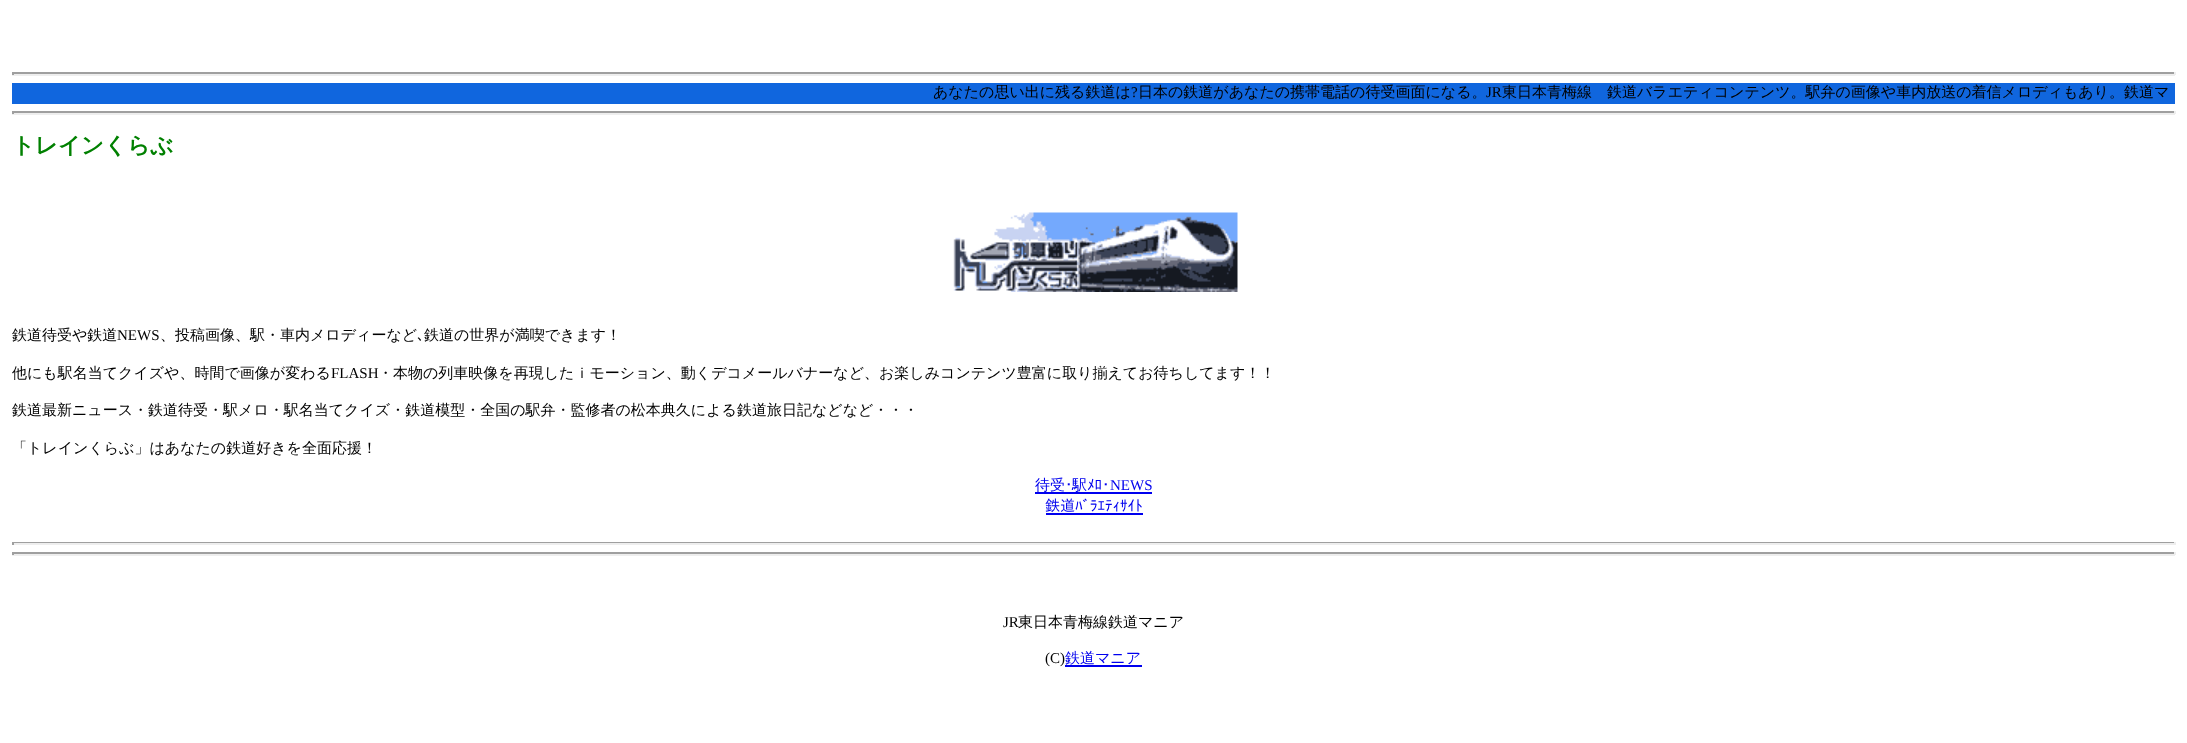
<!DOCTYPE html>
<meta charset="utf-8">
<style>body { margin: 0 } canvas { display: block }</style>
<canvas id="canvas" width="2187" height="743"></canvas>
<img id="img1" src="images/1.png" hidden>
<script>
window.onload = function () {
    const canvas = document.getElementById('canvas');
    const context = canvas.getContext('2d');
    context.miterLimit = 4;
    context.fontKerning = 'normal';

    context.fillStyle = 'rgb(255, 255, 255)';
    context.fillRect(0, 0, 2187, 743);
    context.fillStyle = 'rgb(159, 159, 159)';
    context.fillRect(12, 72, 2163, 2);
    context.fillStyle = 'rgb(238, 238, 238)';
    context.fillRect(2174, 72, 2, 3);
    context.fillRect(12, 74, 2163, 2);
    context.fillStyle = 'rgb(159, 159, 159)';
    context.fillRect(12, 72, 2, 3);
    context.fillStyle = 'rgb(16, 102, 222)';
    context.fillRect(12, 83, 2163, 21);
    context.fillStyle = 'rgb(159, 159, 159)';
    context.fillRect(12, 111, 2163, 2);
    context.fillStyle = 'rgb(238, 238, 238)';
    context.fillRect(2174, 111, 2, 3);
    context.fillRect(12, 113, 2163, 2);
    context.fillStyle = 'rgb(159, 159, 159)';
    context.fillRect(12, 111, 2, 3);
    context.drawImage(document.getElementById('img1'), 953, 212, 285, 80);
    context.fillStyle = 'rgb(0, 0, 238)';
    context.fillRect(1035, 492, 117, 2);
    context.fillRect(1046, 513, 97, 2);
    context.fillStyle = 'rgb(159, 159, 159)';
    context.fillRect(12, 542, 2163, 1);
    context.fillStyle = 'rgb(238, 238, 238)';
    context.fillRect(2174, 542, 2, 3);
    context.fillRect(12, 543, 2163, 2);
    context.fillStyle = 'rgb(159, 159, 159)';
    context.fillRect(12, 542, 2, 3);
    context.fillRect(12, 552, 2163, 2);
    context.fillStyle = 'rgb(238, 238, 238)';
    context.fillRect(2174, 552, 2, 3);
    context.fillRect(12, 554, 2163, 2);
    context.fillStyle = 'rgb(159, 159, 159)';
    context.fillRect(12, 552, 2, 3);
    context.fillStyle = 'rgb(0, 0, 238)';
    context.fillRect(1065, 665, 77, 2);
    context.font = '500 15px WenQuanYi Zen Hei';
    context.fillStyle = 'rgb(0, 0, 0)';
    context.fillText('あなたの思い出に残る鉄道は', 933, 97);
    context.font = '15px Liberation Serif';
    context.fillText('?', 1131, 97);
    context.font = '500 15px WenQuanYi Zen Hei';
    context.fillText('日本の鉄道があなたの携帯電話の待受画面になる。', 1138, 97);
    context.font = '15px Liberation Serif';
    context.fillText('JR', 1486, 97);
    context.font = '500 15px WenQuanYi Zen Hei';
    context.fillText('東日本青梅線　鉄道バラエティコンテンツ。駅弁の画像や車内放送の着信メロディもあり。鉄道マ', 1502, 97);
    context.font = 'bold 22.5px WenQuanYi Zen Hei';
    context.fillStyle = 'rgb(0, 128, 0)';
    context.fillText('トレインくらぶ', 12, 153);
    context.font = '500 15px WenQuanYi Zen Hei';
    context.fillStyle = 'rgb(0, 0, 0)';
    context.fillText('鉄道待受や鉄道', 12, 340);
    context.font = '15px Liberation Serif';
    context.fillText('NEWS', 117, 340);
    context.font = '500 15px WenQuanYi Zen Hei';
    context.fillText('、投稿画像、駅・車内メロディーなど', 160, 340);
    context.font = '15px IPAGothic';
    context.fillText('､', 417, 340);
    context.font = '500 15px WenQuanYi Zen Hei';
    context.fillText('鉄道の世界が満喫できます！', 424, 340);
    context.fillText('他にも駅名当てクイズや、時間で画像が変わる', 12, 378);
    context.font = '15px Liberation Serif';
    context.fillText('FLASH', 331, 378);
    context.font = '500 15px WenQuanYi Zen Hei';
    context.fillText('・本物の列車映像を再現したｉモーション、動くデコメールバナーなど、お楽しみコンテンツ豊富に取り揃えてお待ちしてます！！', 378, 378);
    context.fillText('鉄道最新ニュース・鉄道待受・駅メロ・駅名当てクイズ・鉄道模型・全国の駅弁・監修者の松本典久による鉄道旅日記などなど・・・', 12, 415);
    context.fillText('「トレインくらぶ」はあなたの鉄道好きを全面応援！', 12, 453);
    context.fillStyle = 'rgb(0, 0, 238)';
    context.fillText('待受', 1035, 490);
    context.font = '15px IPAGothic';
    context.fillText('･', 1065, 490);
    context.font = '500 15px WenQuanYi Zen Hei';
    context.fillText('駅', 1072, 490);
    context.font = '15px IPAGothic';
    context.fillText('ﾒﾛ･', 1087, 490);
    context.font = '15px Liberation Serif';
    context.fillText('NEWS', 1110, 490);
    context.font = '15px IPAGothic';
    context.fillText('鉄道ﾊﾞﾗｴﾃｨｻｲﾄ', 1045, 511);
    context.font = '15px Liberation Serif';
    context.fillStyle = 'rgb(0, 0, 0)';
    context.fillText('JR', 1003, 627);
    context.font = '500 15px WenQuanYi Zen Hei';
    context.fillText('東日本青梅線鉄道マニア', 1018, 627);
    context.font = '15px Liberation Serif';
    context.fillText('(C)', 1045, 663);
    context.font = '500 15px WenQuanYi Zen Hei';
    context.fillStyle = 'rgb(0, 0, 238)';
    context.fillText('鉄道マニア', 1065, 663);
};
</script>
